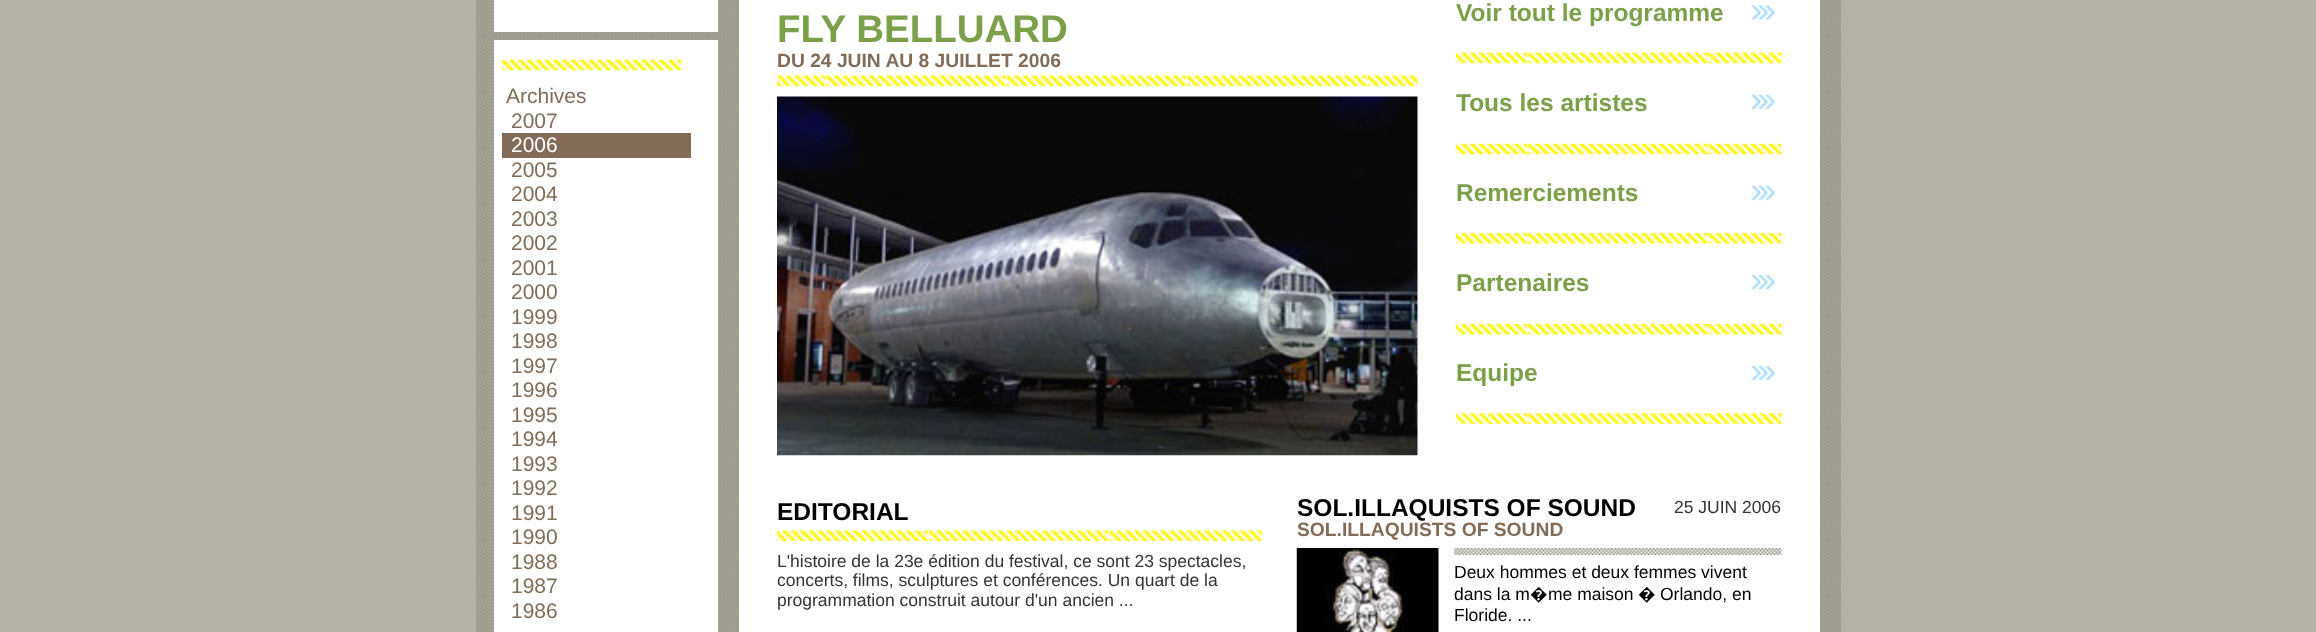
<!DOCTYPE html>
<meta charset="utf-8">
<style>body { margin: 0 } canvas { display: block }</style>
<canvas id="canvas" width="2316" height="632"></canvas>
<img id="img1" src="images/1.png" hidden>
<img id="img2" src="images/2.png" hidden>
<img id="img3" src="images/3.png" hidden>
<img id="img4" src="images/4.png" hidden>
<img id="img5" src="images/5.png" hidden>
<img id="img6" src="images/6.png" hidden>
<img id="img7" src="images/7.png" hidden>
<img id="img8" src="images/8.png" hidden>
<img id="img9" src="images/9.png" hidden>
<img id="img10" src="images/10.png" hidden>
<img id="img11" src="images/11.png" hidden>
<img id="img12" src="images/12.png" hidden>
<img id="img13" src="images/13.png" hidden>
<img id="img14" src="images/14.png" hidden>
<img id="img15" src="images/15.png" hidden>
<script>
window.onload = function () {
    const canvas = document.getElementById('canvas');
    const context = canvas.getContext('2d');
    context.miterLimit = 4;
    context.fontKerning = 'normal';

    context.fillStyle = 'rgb(180, 178, 161)';
    context.fillRect(0, 0, 2316, 632);
    context.drawImage(document.getElementById('img1'), 476, 0, 1365, 632);
    context.fillStyle = 'rgb(255, 255, 255)';
    context.fillRect(494, 0, 224, 32);
    context.fillRect(494, 40, 224, 592);
    context.drawImage(document.getElementById('img2'), 502, 59, 181, 12);
    context.fillStyle = 'rgb(130, 108, 88)';
    context.fillRect(502, 133, 189, 25);
    context.fillStyle = 'rgb(255, 255, 255)';
    context.fillRect(739, 0, 1081, 632);
    context.drawImage(document.getElementById('img3'), 777, 75, 641, 11);
    context.drawImage(document.getElementById('img4'), 777, 96, 641, 360);
    context.drawImage(document.getElementById('img5'), 1456, 52, 326, 12);
    context.drawImage(document.getElementById('img6'), 1751, 5, 24, 15);
    context.drawImage(document.getElementById('img7'), 1456, 143, 326, 12);
    context.drawImage(document.getElementById('img8'), 1751, 94, 24, 16);
    context.drawImage(document.getElementById('img9'), 1456, 233, 326, 11);
    context.drawImage(document.getElementById('img8'), 1751, 185, 24, 16);
    context.drawImage(document.getElementById('img10'), 1456, 324, 326, 11);
    context.drawImage(document.getElementById('img11'), 1751, 274, 24, 16);
    context.drawImage(document.getElementById('img12'), 1456, 413, 326, 11);
    context.drawImage(document.getElementById('img11'), 1751, 365, 24, 16);
    context.drawImage(document.getElementById('img13'), 777, 530, 485, 11);
    context.drawImage(document.getElementById('img14'), 1296, 548, 143, 84);
    context.drawImage(document.getElementById('img15'), 1454, 548, 328, 7);
    context.font = '21px Liberation Sans';
    context.fillStyle = 'rgb(130, 108, 88)';
    context.fillText('Archives', 506, 103);
    context.fillText('2007', 511, 128);
    context.fillStyle = 'rgb(255, 255, 255)';
    context.fillText('2006', 511, 152);
    context.fillStyle = 'rgb(130, 108, 88)';
    context.fillText('2005', 511, 177);
    context.fillText('2004', 511, 201);
    context.fillText('2003', 511, 226);
    context.fillText('2002', 511, 250);
    context.fillText('2001', 511, 275);
    context.fillText('2000', 511, 299);
    context.fillText('1999', 511, 324);
    context.fillText('1998', 511, 348);
    context.fillText('1997', 511, 373);
    context.fillText('1996', 511, 397);
    context.fillText('1995', 511, 422);
    context.fillText('1994', 511, 446);
    context.fillText('1993', 511, 471);
    context.fillText('1992', 511, 495);
    context.fillText('1991', 511, 520);
    context.fillText('1990', 511, 544);
    context.fillText('1988', 511, 569);
    context.fillText('1987', 511, 593);
    context.fillText('1986', 511, 618);
    context.font = 'bold 38.5px Liberation Sans';
    context.fillStyle = 'rgb(124, 160, 73)';
    context.fillText('FLY BELLUARD', 777, 42);
    context.font = 'bold 19.25px Liberation Sans';
    context.fillStyle = 'rgb(130, 108, 88)';
    context.fillText('DU 24 JUIN AU 8 JUILLET 2006', 777, 67);
    context.font = 'bold 24.5px Liberation Sans';
    context.fillStyle = 'rgb(124, 160, 73)';
    context.fillText('Voir tout le programme', 1456, 21);
    context.fillText('Tous les artistes', 1456, 111);
    context.fillText('Remerciements', 1456, 201);
    context.fillText('Partenaires', 1456, 291);
    context.fillText('Equipe', 1456, 381);
    context.fillStyle = 'rgb(0, 0, 0)';
    context.fillText('EDITORIAL', 777, 520);
    context.font = '17.5px Liberation Sans';
    context.fillStyle = 'rgb(51, 51, 51)';
    context.fillText('L\'histoire de la 23e édition du festival, ce sont 23 spectacles,', 777, 567);
    context.fillText('concerts, films, sculptures et conférences. Un quart de la', 777, 586);
    context.fillText('programmation construit autour d\'un ancien ...', 777, 606);
    context.font = 'bold 24.5px Liberation Sans';
    context.fillStyle = 'rgb(0, 0, 0)';
    context.fillText('SOL.ILLAQUISTS OF SOUND', 1297, 516);
    context.font = '17.5px Liberation Sans';
    context.fillStyle = 'rgb(51, 51, 51)';
    context.fillText('25 JUIN 2006', 1674, 513);
    context.font = 'bold 19.25px Liberation Sans';
    context.fillStyle = 'rgb(130, 108, 88)';
    context.fillText('SOL.ILLAQUISTS OF SOUND', 1297, 536);
    context.font = '17.5px Liberation Sans';
    context.fillStyle = 'rgb(0, 0, 0)';
    context.fillText('Deux hommes et deux femmes vivent', 1454, 578);
    context.fillText('dans la m', 1454, 600);
    context.font = '17.5px Noto Sans';
    context.fillText('�', 1530, 600);
    context.font = '17.5px Liberation Sans';
    context.fillText('me maison', 1548, 600);
    context.font = '17.5px Noto Sans';
    context.fillText('�', 1638, 600);
    context.font = '17.5px Liberation Sans';
    context.fillText('Orlando, en', 1660, 600);
    context.fillText('Floride. ...', 1454, 621);
};
</script>
